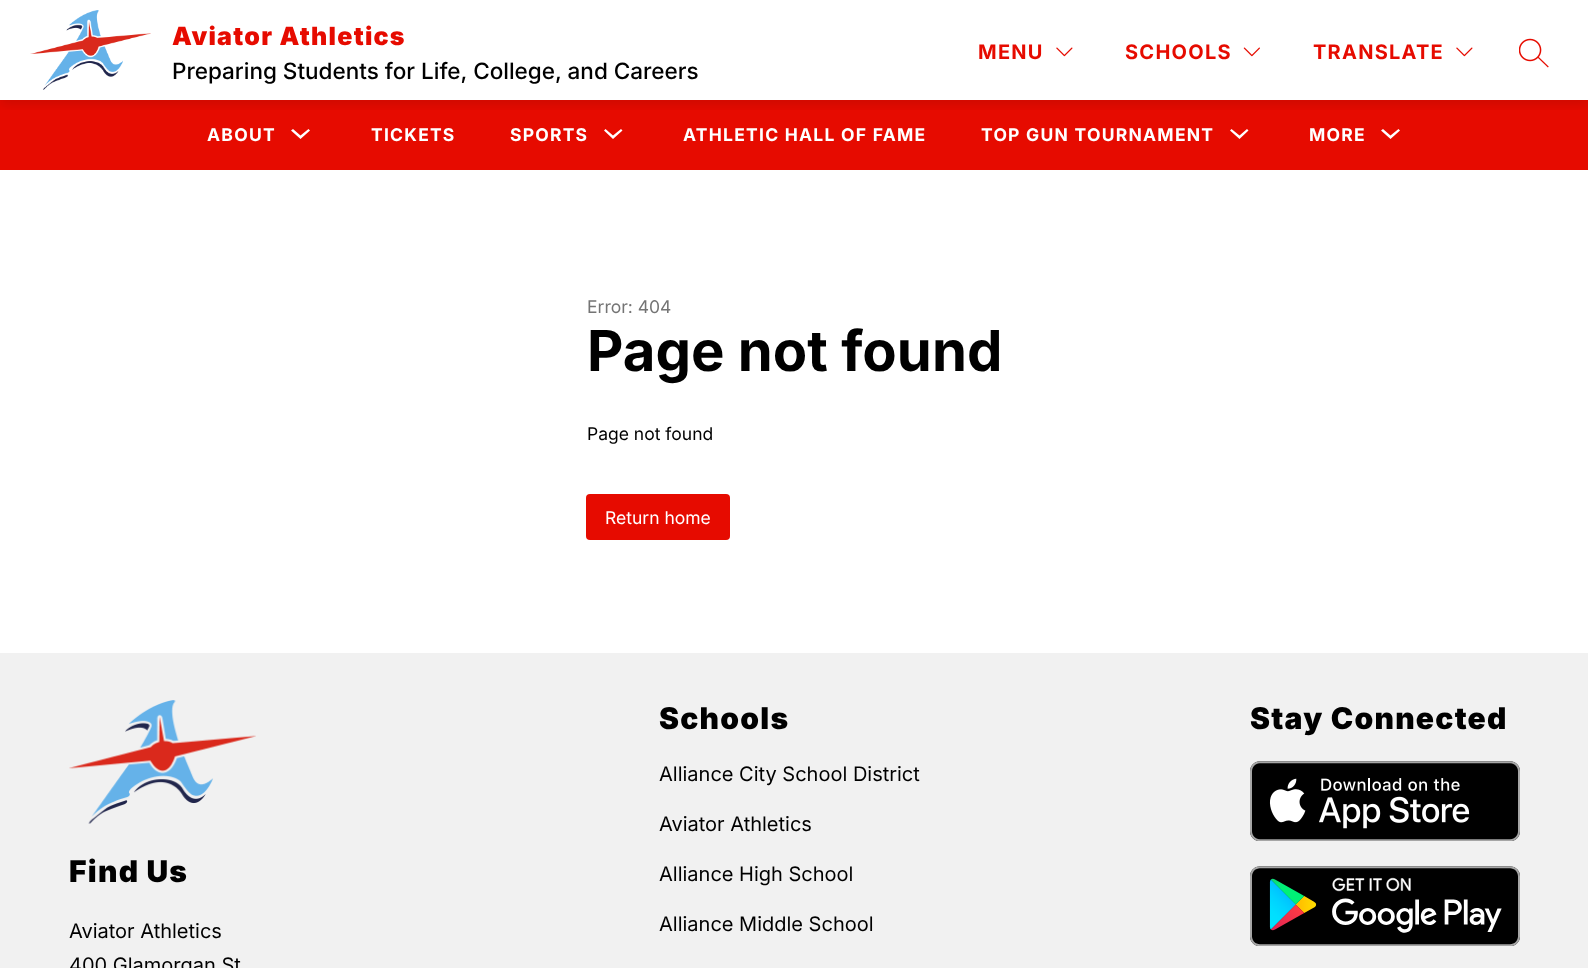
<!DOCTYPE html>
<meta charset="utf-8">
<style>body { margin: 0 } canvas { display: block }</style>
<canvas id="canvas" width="1588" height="968"></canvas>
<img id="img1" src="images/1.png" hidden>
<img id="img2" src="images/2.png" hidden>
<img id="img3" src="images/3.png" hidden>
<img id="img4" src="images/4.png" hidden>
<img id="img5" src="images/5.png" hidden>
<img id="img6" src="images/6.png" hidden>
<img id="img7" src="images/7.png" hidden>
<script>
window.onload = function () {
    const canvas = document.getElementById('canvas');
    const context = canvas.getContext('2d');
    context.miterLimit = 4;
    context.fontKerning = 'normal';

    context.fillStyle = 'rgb(255, 255, 255)';
    context.fillRect(0, 0, 1588, 968);
    context.fillStyle = 'rgb(230, 11, 0)';
    context.fillRect(0, 100, 1588, 70);
    context.save();
    context.beginPath();
    context.rect(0, 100, 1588, 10);
    context.clip();
    context.fillStyle = 'rgba(0, 0, 0, 0.1)';
    context.filter = 'blur(6px)';
    context.beginPath();
    context.rect(0, 5, 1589, 100);
    context.fill();
    context.filter = 'none';
    context.restore();
    context.drawImage(document.getElementById('img1'), 30, 10, 121, 80);
    context.drawImage(document.getElementById('img2'), 1056, 47, 17, 10);
    context.drawImage(document.getElementById('img3'), 1243, 47, 17, 10);
    context.drawImage(document.getElementById('img2'), 1456, 47, 17, 10);
    context.drawImage(document.getElementById('img4'), 1519, 38, 30, 30);
    context.fillStyle = 'rgb(255, 255, 255)';
    context.beginPath();
    context.moveTo(308.5, 129);
    context.lineTo(300.5, 135.5);
    context.lineTo(293, 129);
    context.lineTo(291, 130.5);
    context.lineTo(300.5, 139);
    context.lineTo(310, 130.5);
    context.closePath();
    context.fill('evenodd');
    context.beginPath();
    context.moveTo(621, 129);
    context.lineTo(613, 135.5);
    context.lineTo(605.5, 129);
    context.lineTo(604, 130.5);
    context.lineTo(613, 139);
    context.lineTo(622.5, 130.5);
    context.closePath();
    context.fill('evenodd');
    context.beginPath();
    context.moveTo(1247, 129);
    context.lineTo(1239.5, 135.5);
    context.lineTo(1231.5, 129);
    context.lineTo(1230, 130.5);
    context.lineTo(1239.5, 139);
    context.lineTo(1248.5, 130.5);
    context.closePath();
    context.fill('evenodd');
    context.beginPath();
    context.moveTo(1398.5, 129);
    context.lineTo(1390.5, 135.5);
    context.lineTo(1383, 129);
    context.lineTo(1381, 130.5);
    context.lineTo(1390.5, 139);
    context.lineTo(1400, 130.5);
    context.closePath();
    context.fill('evenodd');
    context.fillStyle = 'rgb(230, 11, 0)';
    context.beginPath();
    context.roundRect(586, 494, 144, 46, 4);
    context.fill();
    context.fillStyle = 'rgb(241, 241, 241)';
    context.fillRect(0, 653, 1588, 315);
    context.drawImage(document.getElementById('img5'), 1250, 761, 270, 80);
    context.drawImage(document.getElementById('img6'), 1250, 866, 270, 80);
    context.drawImage(document.getElementById('img7'), 69, 700, 187, 124);
    context.letterSpacing = '1.25px';
    context.font = '900 25px Inter';
    context.fillStyle = 'rgb(230, 11, 0)';
    context.fillText('Aviator Athletics', 172, 45);
    context.letterSpacing = '0px';
    context.font = '500 22.5px Inter';
    context.fillStyle = 'rgb(0, 0, 0)';
    context.fillText('Preparing Students for Life, College, and Careers', 172, 79);
    context.letterSpacing = '1.25px';
    context.font = 'bold 20px Inter';
    context.fillStyle = 'rgb(230, 11, 0)';
    context.fillText('MENU', 978, 59);
    context.fillText('SCHOOLS', 1125, 59);
    context.fillText('TRANSLATE', 1313, 59);
    context.font = 'bold 17.5px Inter';
    context.fillStyle = 'rgb(255, 255, 255)';
    context.fillText('ABOUT', 207, 141);
    context.fillText('TICKETS', 371, 141);
    context.fillText('SPORTS', 510, 141);
    context.fillText('ATHLETIC HALL OF FAME', 683, 141);
    context.fillText('TOP GUN TOURNAMENT', 981, 141);
    context.fillText('MORE', 1309, 141);
    context.letterSpacing = '0px';
    context.font = '17.5px Inter';
    context.fillStyle = 'rgb(116, 116, 116)';
    context.fillText('Error: 404', 587, 313);
    context.font = 'bold 56.25px Inter';
    context.fillStyle = 'rgb(0, 0, 0)';
    context.fillText('Page not found', 587, 371);
    context.font = '17.5px Inter';
    context.fillText('Page not found', 587, 440);
    context.fillStyle = 'rgb(255, 255, 255)';
    context.fillText('Return home', 605, 524);
    context.letterSpacing = '1.25px';
    context.font = '900 30px Inter';
    context.fillStyle = 'rgb(0, 0, 0)';
    context.fillText('Schools', 659, 729);
    context.letterSpacing = '0px';
    context.font = '20px Inter';
    context.fillText('Alliance City School District', 659, 781);
    context.fillText('Aviator Athletics', 659, 831);
    context.fillText('Alliance High School', 659, 881);
    context.fillText('Alliance Middle School', 659, 931);
    context.letterSpacing = '1.25px';
    context.font = '900 30px Inter';
    context.fillText('Stay Connected', 1250, 729);
    context.fillText('Find Us', 69, 882);
    context.letterSpacing = '0px';
    context.font = '20px Inter';
    context.fillText('Aviator Athletics', 69, 938);
    context.fillText('400 Glamorgan St', 69, 972);
};
</script>
